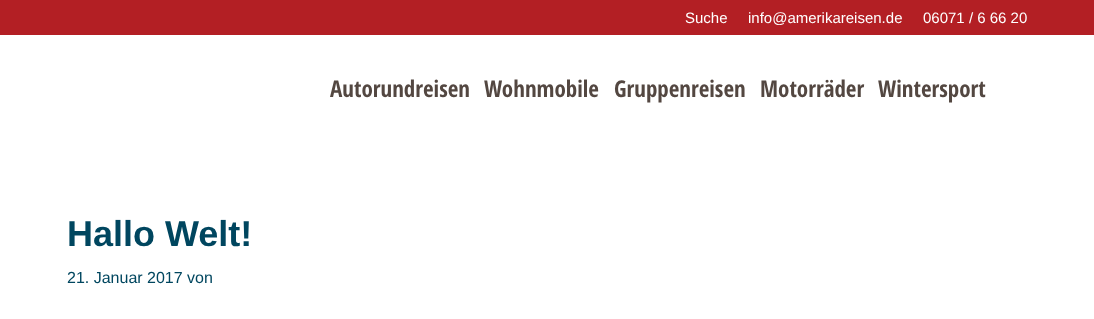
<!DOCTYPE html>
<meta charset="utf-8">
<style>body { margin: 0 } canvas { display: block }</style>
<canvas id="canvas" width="1094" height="319"></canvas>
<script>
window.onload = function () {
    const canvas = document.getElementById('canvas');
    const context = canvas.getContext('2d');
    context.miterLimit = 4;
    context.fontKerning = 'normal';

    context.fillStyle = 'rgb(255, 255, 255)';
    context.fillRect(0, 0, 1094, 319);
    context.fillStyle = 'rgb(179, 31, 36)';
    context.fillRect(0, 0, 1094, 35);
    context.font = '15px Liberation Sans';
    context.fillStyle = 'rgb(255, 255, 255)';
    context.fillText('Suche', 685, 23);
    context.fillText('info@amerikareisen.de', 748, 23);
    context.fillText('06071 / 6 66 20', 923, 23);
    context.font = 'bold 23px Open Sans Condensed';
    context.fillStyle = 'rgb(83, 71, 65)';
    context.fillText('Autorundreisen', 330, 97);
    context.fillText('Wohnmobile', 484, 97);
    context.fillText('Gruppenreisen', 614, 97);
    context.fillText('Motorräder', 760, 97);
    context.fillText('Wintersport', 878, 97);
    context.font = 'bold 36px Liberation Sans';
    context.fillStyle = 'rgb(0, 70, 95)';
    context.fillText('Hallo Welt!', 67, 246);
    context.font = '16px Liberation Sans';
    context.fillText('21. Januar 2017 von', 67, 283);
};
</script>
